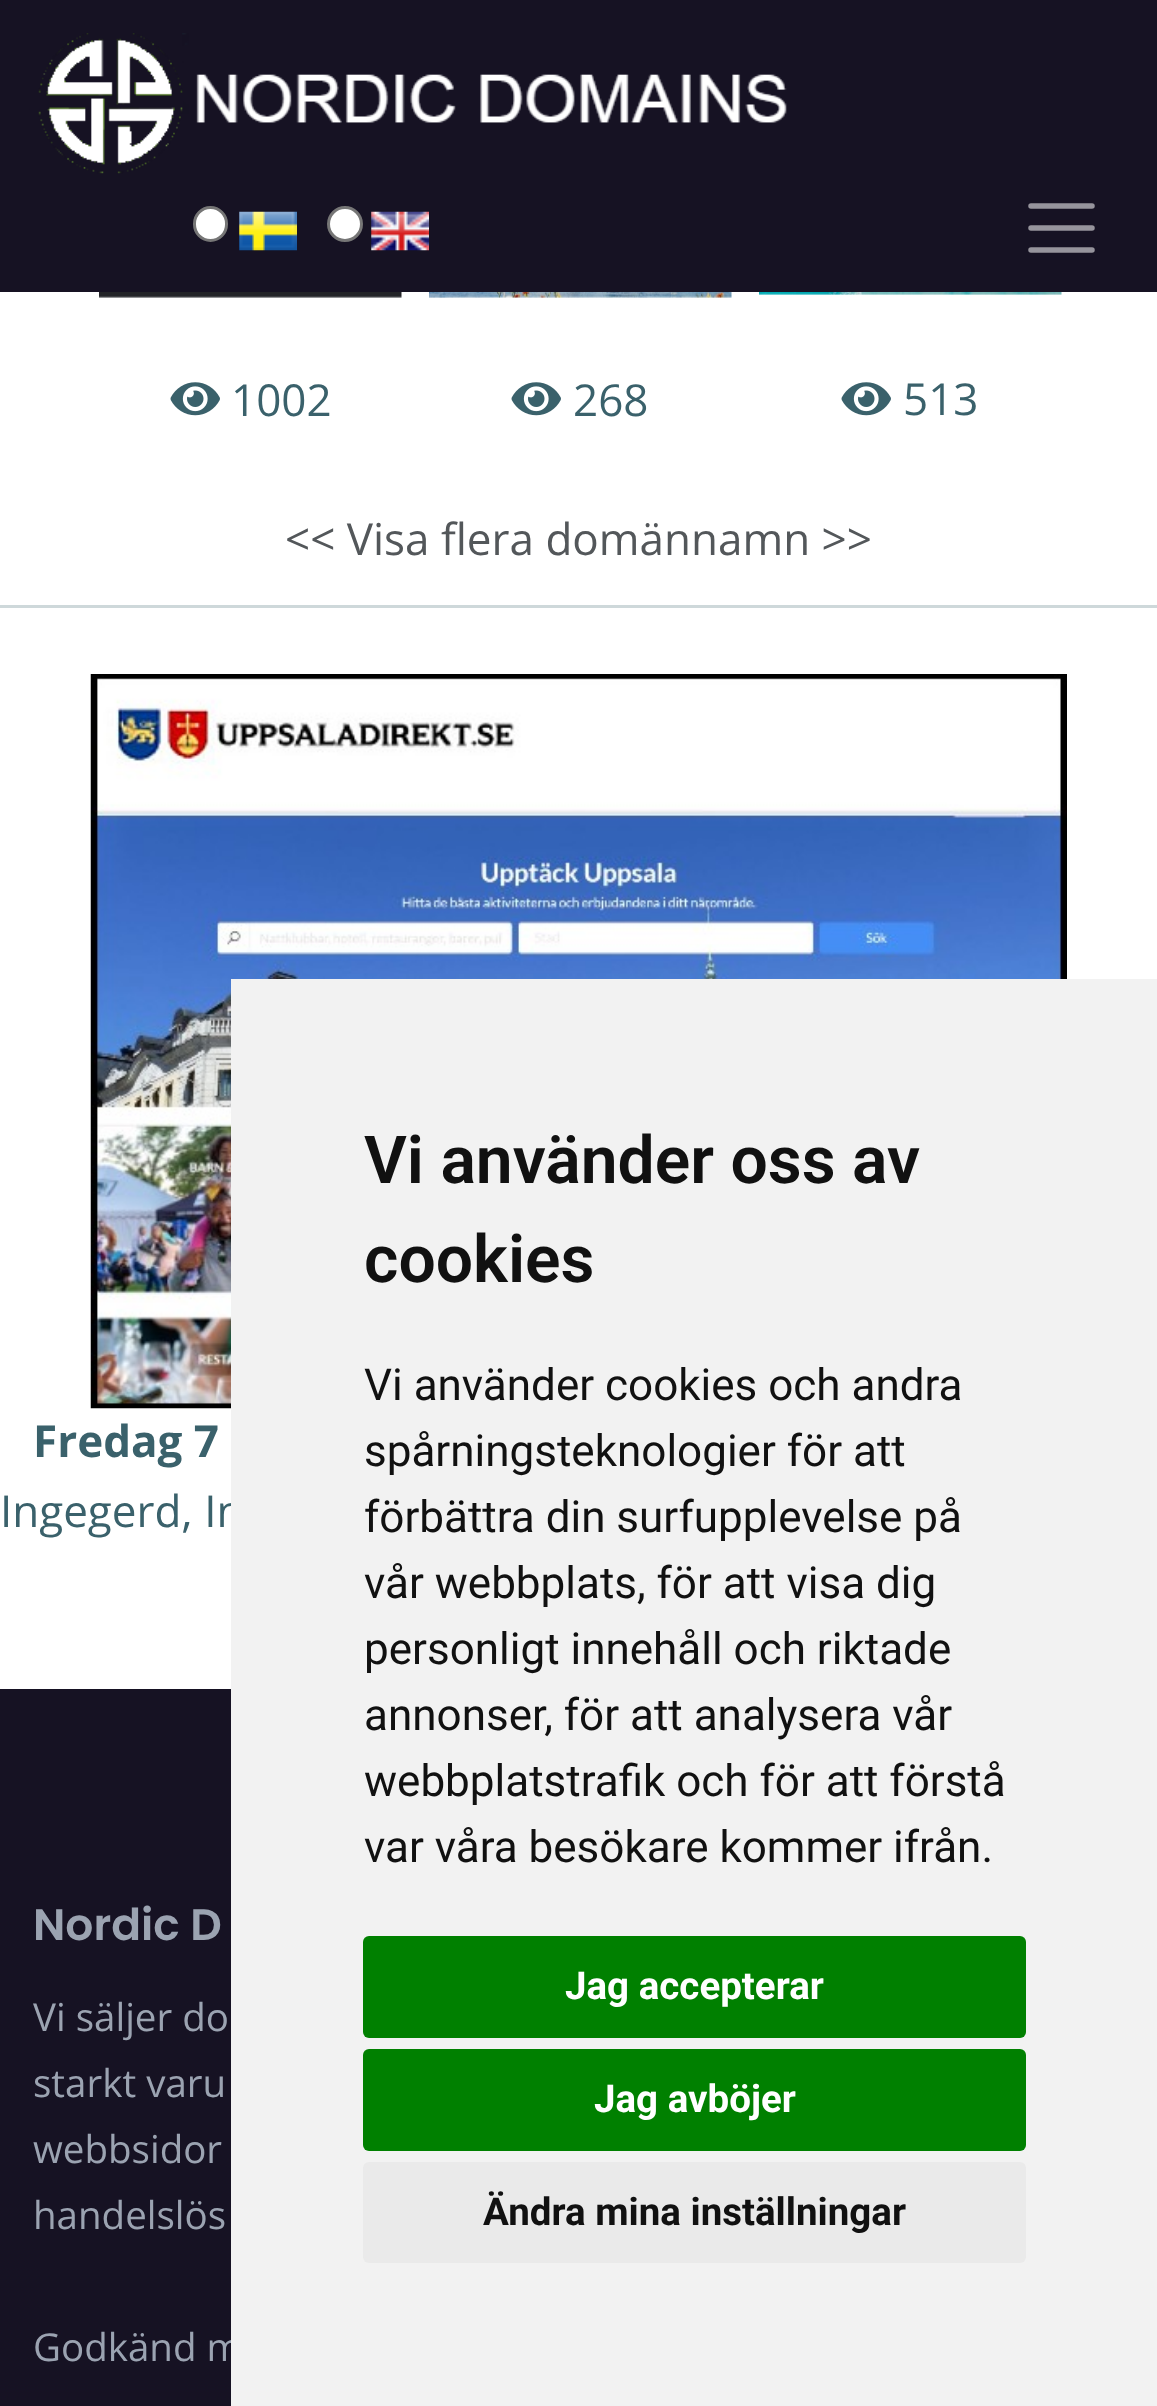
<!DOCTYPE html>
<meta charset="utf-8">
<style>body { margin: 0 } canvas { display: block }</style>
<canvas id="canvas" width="1157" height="2406"></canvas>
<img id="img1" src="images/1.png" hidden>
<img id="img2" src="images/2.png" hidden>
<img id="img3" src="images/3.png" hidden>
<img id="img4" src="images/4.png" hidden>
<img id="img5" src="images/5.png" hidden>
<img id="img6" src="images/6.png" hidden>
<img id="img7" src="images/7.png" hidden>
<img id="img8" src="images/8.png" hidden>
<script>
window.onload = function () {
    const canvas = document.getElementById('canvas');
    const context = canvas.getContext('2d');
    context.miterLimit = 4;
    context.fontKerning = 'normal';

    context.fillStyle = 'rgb(22, 18, 35)';
    context.fillRect(0, 0, 1157, 2406);
    context.drawImage(document.getElementById('img1'), 38, 33, 749, 141);
    context.fillStyle = 'rgb(255, 255, 255)';
    context.beginPath();
    context.roundRect(194.5, 207.5, 32, 33, 16);
    context.fill();
    context.strokeStyle = 'rgb(118, 118, 118)';
    context.lineWidth = 3;
    context.stroke();
    context.drawImage(document.getElementById('img2'), 239, 211, 58, 40);
    context.beginPath();
    context.arc(345, 224, 16.5, 0, 2 * Math.PI);
    context.fill();
    context.stroke();
    context.drawImage(document.getElementById('img3'), 371, 211, 58, 40);
    context.beginPath();
    context.moveTo(1031, 206);
    context.lineTo(1092, 206);
    context.moveTo(1031, 228);
    context.lineTo(1092, 228);
    context.moveTo(1031, 250);
    context.lineTo(1092, 250);
    context.strokeStyle = 'rgb(150, 148, 156)';
    context.lineWidth = 5.5;
    context.lineCap = 'round';
    context.stroke();
    context.fillRect(0, 292, 1157, 1397);
    context.drawImage(document.getElementById('img4'), 99, 292, 303, 6);
    context.drawImage(document.getElementById('img5'), 170, 382, 50, 34);
    context.drawImage(document.getElementById('img6'), 429, 292, 303, 6);
    context.drawImage(document.getElementById('img5'), 511, 382, 50, 34);
    context.drawImage(document.getElementById('img7'), 759, 292, 303, 3);
    context.drawImage(document.getElementById('img5'), 841, 382, 50, 34);
    context.fillStyle = 'rgb(206, 216, 218)';
    context.fillRect(0, 605, 1157, 3);
    context.drawImage(document.getElementById('img8'), 90, 674, 977, 735);
    context.font = '44px Open Sans';
    context.fillStyle = 'rgb(58, 97, 107)';
    context.fillText('1002', 231, 416);
    context.fillText('268', 573, 416);
    context.fillText('513', 903, 415);
    context.fillStyle = 'rgb(83, 87, 90)';
    context.fillText('<< Visa flera domännamn >>', 285, 555);
    context.font = 'bold 44px Open Sans';
    context.fillStyle = 'rgb(58, 97, 107)';
    context.fillText('Fredag 7', 33, 1457);
    context.font = '44px Open Sans';
    context.fillText('Ingegerd, In', 0, 1527);
    context.font = '600 44px Poppins';
    context.fillStyle = 'rgb(155, 163, 177)';
    context.fillText('Nordic D', 33, 1940);
    context.font = '38.5px Open Sans';
    context.fillText('Vi säljer do', 33, 2031);
    context.fillText('starkt varu', 33, 2097);
    context.fillText('webbsidor', 33, 2163);
    context.fillText('handelslös', 33, 2229);
    context.fillText('Godkänd m', 33, 2361);
    context.fillStyle = 'rgb(242, 242, 242)';
    context.fillRect(231, 979, 926, 1427);
    context.font = '600 66px Roboto';
    context.fillStyle = 'rgb(17, 17, 17)';
    context.fillText('Vi använder oss av', 364, 1183);
    context.fillText('cookies', 364, 1282);
    context.font = '44px Roboto';
    context.fillText('Vi använder cookies och andra', 364, 1400);
    context.fillText('spårningsteknologier för att', 364, 1466);
    context.fillText('förbättra din surfupplevelse på', 364, 1532);
    context.fillText('vår webbplats, för att visa dig', 364, 1598);
    context.fillText('personligt innehåll och riktade', 364, 1664);
    context.fillText('annonser, för att analysera vår', 364, 1730);
    context.fillText('webbplatstrafik och för att förstå', 364, 1796);
    context.fillText('var våra besökare kommer ifrån.', 364, 1862);
    context.fillStyle = 'rgb(0, 128, 0)';
    context.beginPath();
    context.roundRect(363, 1936, 663, 102, 6);
    context.fill();
    context.font = 'bold 38.5px Roboto';
    context.fillStyle = 'rgb(255, 255, 255)';
    context.fillText('Jag accepterar', 565, 1999);
    context.fillStyle = 'rgb(0, 128, 0)';
    context.beginPath();
    context.roundRect(363, 2049, 663, 102, 6);
    context.fill();
    context.fillStyle = 'rgb(255, 255, 255)';
    context.fillText('Jag avböjer', 594, 2112);
    context.fillStyle = 'rgb(234, 234, 234)';
    context.beginPath();
    context.roundRect(363, 2162, 663, 101, 6);
    context.fill();
    context.fillStyle = 'rgb(17, 17, 17)';
    context.fillText('Ändra mina inställningar', 483, 2225);
};
</script>
